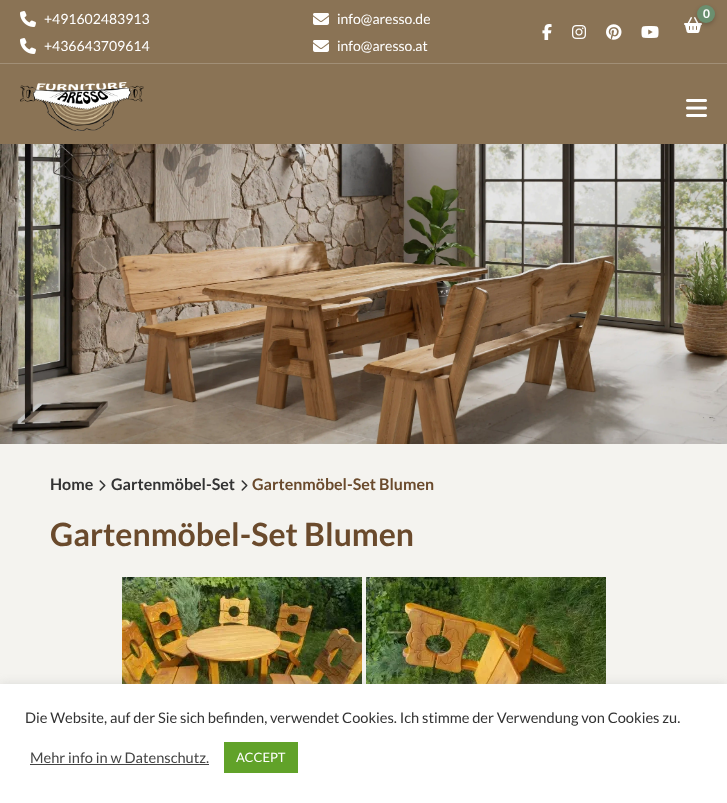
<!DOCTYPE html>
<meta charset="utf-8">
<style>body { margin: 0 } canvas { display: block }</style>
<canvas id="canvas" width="727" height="803"></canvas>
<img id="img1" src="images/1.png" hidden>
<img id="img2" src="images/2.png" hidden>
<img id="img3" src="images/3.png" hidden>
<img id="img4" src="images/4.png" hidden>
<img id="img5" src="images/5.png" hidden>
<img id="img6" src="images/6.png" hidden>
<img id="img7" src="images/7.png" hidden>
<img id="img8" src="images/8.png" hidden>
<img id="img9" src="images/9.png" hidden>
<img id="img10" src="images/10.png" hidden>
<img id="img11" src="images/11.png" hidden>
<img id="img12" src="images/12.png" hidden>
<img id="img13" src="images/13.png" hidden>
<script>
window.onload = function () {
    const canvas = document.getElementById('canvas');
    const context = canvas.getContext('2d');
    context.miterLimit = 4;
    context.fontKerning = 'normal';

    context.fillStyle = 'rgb(244, 243, 239)';
    context.fillRect(0, 0, 727, 803);
    context.fillStyle = 'rgb(138, 115, 85)';
    context.fillRect(0, 0, 727, 144);
    context.drawImage(document.getElementById('img1'), 20, 11, 16, 16);
    context.drawImage(document.getElementById('img1'), 20, 38, 16, 16);
    context.drawImage(document.getElementById('img2'), 313, 13, 16, 12);
    context.drawImage(document.getElementById('img2'), 313, 40, 16, 12);
    context.drawImage(document.getElementById('img3'), 684, 17, 18, 16);
    context.fillStyle = 'rgba(0, 0, 0, 0.2)';
    context.filter = 'blur(2px)';
    context.beginPath();
    context.roundRect(697, 7, 18, 18, 9);
    context.fill();
    context.filter = 'none';
    context.fillStyle = 'rgb(107, 143, 111)';
    context.beginPath();
    context.arc(706, 14, 9, 0, 2 * Math.PI);
    context.fill();
    context.drawImage(document.getElementById('img4'), 542, 24, 10, 16);
    context.drawImage(document.getElementById('img5'), 572, 25, 14, 14);
    context.drawImage(document.getElementById('img6'), 606, 24, 16, 16);
    context.drawImage(document.getElementById('img7'), 641, 26, 18, 12);
    context.fillStyle = 'rgb(161, 143, 119)';
    context.fillRect(0, 63, 727, 1);
    context.drawImage(document.getElementById('img8'), 20, 82, 124, 49);
    context.drawImage(document.getElementById('img9'), 686, 99, 21, 18);
    context.drawImage(document.getElementById('img10'), 0, 144, 727, 300);
    context.drawImage(document.getElementById('img11'), 99, 480, 7, 11);
    context.drawImage(document.getElementById('img11'), 241, 480, 7, 11);
    context.drawImage(document.getElementById('img12'), 122, 577, 240, 107);
    context.drawImage(document.getElementById('img13'), 366, 577, 240, 107);
    context.fillStyle = 'rgba(172, 171, 171, 0.3)';
    context.filter = 'blur(5px)';
    context.beginPath();
    context.rect(0, 683, 727, 119);
    context.fill();
    context.filter = 'none';
    context.fillStyle = 'rgb(255, 255, 255)';
    context.fillRect(0, 684, 727, 119);
    context.fillStyle = 'rgb(68, 68, 68)';
    context.fillRect(30, 764, 179, 1);
    context.fillStyle = 'rgb(97, 162, 41)';
    context.fillRect(224, 742, 74, 31);
    context.font = '14px Lato';
    context.fillStyle = 'rgb(255, 255, 255)';
    context.fillText('+491602483913', 44, 24);
    context.fillText('+436643709614', 44, 51);
    context.fillText('info@aresso.de', 337, 24);
    context.fillText('info@aresso.at', 337, 51);
    context.font = 'bold 12px Lato';
    context.fillText('0', 703, 18);
    context.font = 'bold 16px Lato';
    context.fillStyle = 'rgb(51, 51, 51)';
    context.fillText('Home', 50, 490);
    context.fillText('Gartenmöbel-Set', 111, 490);
    context.fillStyle = 'rgb(106, 74, 44)';
    context.fillText('Gartenmöbel-Set Blumen', 252, 490);
    context.font = 'bold 32px Lato';
    context.fillText('Gartenmöbel-Set Blumen', 50, 546);
    context.font = '14.65px Lato';
    context.fillStyle = 'rgb(51, 51, 51)';
    context.fillText('Die Website, auf der Sie sich befinden, verwendet Cookies. Ich stimme der Verwendung von Cookies zu.', 25, 723);
    context.fillStyle = 'rgb(68, 68, 68)';
    context.fillText('Mehr info in w Datenschutz.', 30, 763);
    context.font = '13px Lato';
    context.fillStyle = 'rgb(255, 255, 255)';
    context.fillText('ACCEPT', 236, 762);
};
</script>
